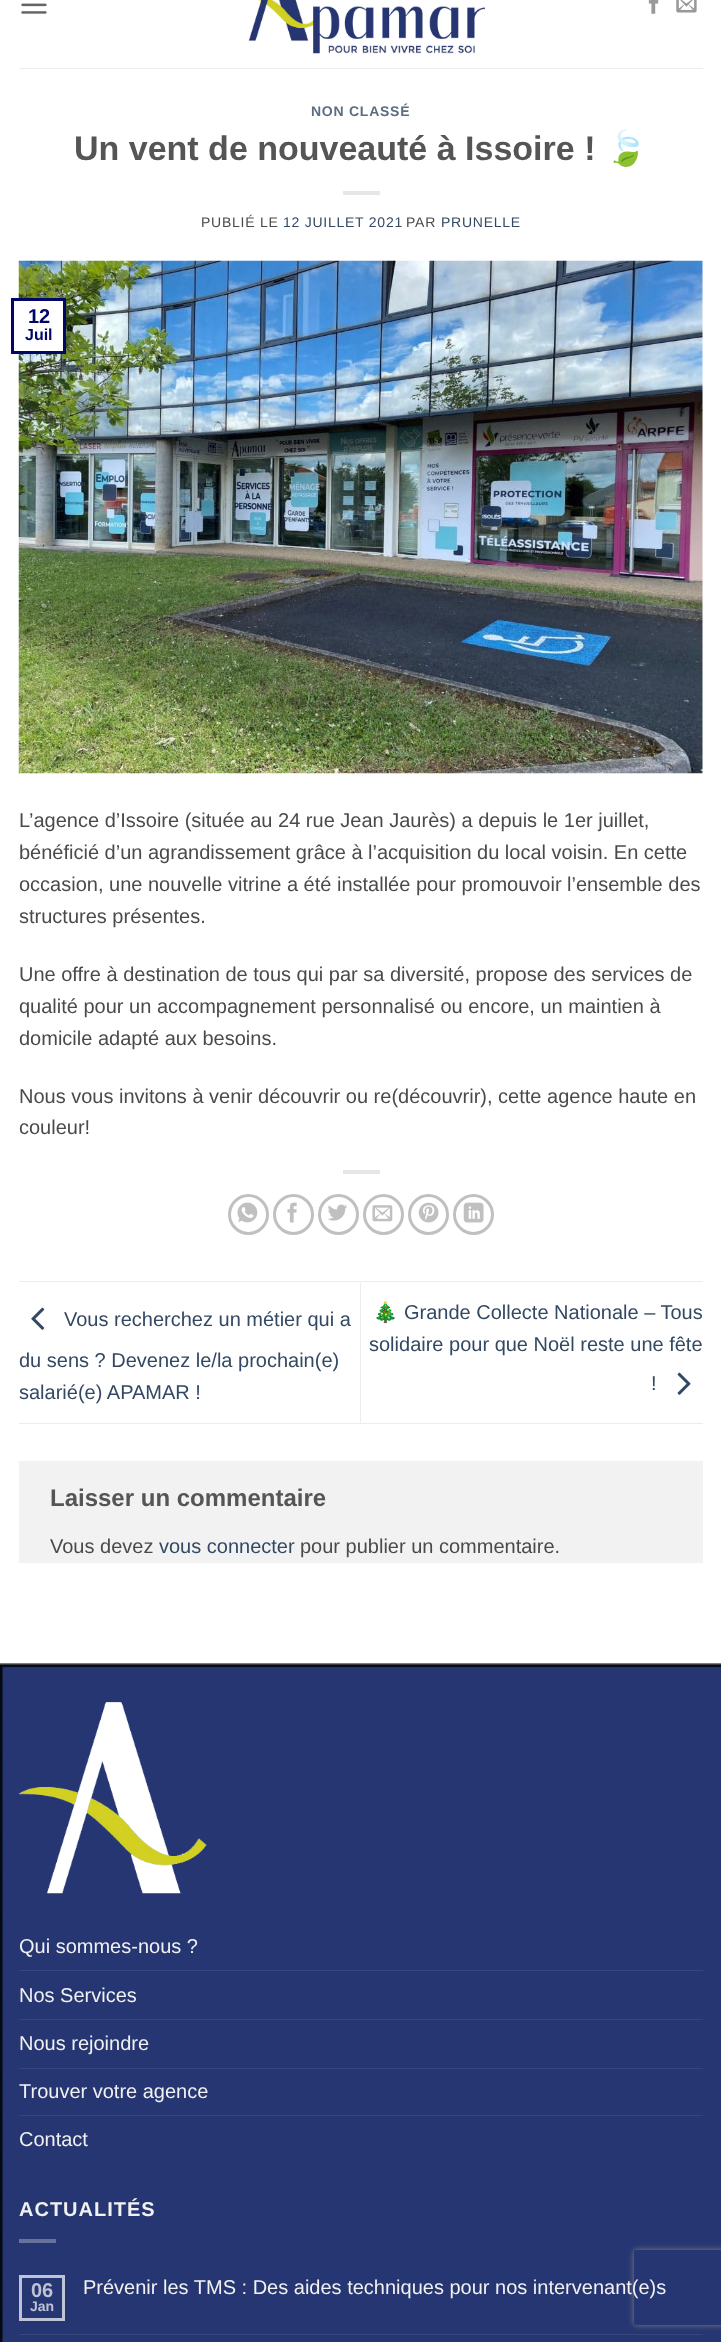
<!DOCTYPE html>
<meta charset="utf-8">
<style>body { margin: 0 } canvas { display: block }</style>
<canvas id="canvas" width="721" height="2342"></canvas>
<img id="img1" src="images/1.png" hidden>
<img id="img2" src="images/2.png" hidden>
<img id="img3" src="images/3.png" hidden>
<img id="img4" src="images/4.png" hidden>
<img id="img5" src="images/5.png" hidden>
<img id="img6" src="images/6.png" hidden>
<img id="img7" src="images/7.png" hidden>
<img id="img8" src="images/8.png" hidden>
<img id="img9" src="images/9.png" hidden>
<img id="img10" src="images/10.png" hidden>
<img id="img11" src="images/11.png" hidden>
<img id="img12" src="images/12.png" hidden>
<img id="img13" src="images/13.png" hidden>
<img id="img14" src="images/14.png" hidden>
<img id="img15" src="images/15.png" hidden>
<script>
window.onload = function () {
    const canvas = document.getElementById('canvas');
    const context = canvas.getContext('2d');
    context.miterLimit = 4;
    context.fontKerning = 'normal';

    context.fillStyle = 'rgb(255, 255, 255)';
    context.fillRect(0, 0, 721, 2342);
    context.drawImage(document.getElementById('img1'), 21, 3, 26, 11);
    context.drawImage(document.getElementById('img2'), 248, 0, 237, 54);
    context.drawImage(document.getElementById('img3'), 648, 0, 11, 14);
    context.drawImage(document.getElementById('img4'), 676, 0, 21, 13);
    context.fillStyle = 'rgb(237, 237, 237)';
    context.fillRect(19, 68, 684, 1);
    context.fillStyle = 'rgb(230, 230, 230)';
    context.fillRect(343, 191, 37, 4);
    context.drawImage(document.getElementById('img5'), 18, 260, 685, 514);
    context.fillStyle = 'rgb(255, 255, 255)';
    context.fillRect(18, 301, 45, 50);
    context.strokeStyle = 'rgb(0, 7, 105)';
    context.lineWidth = 3;
    context.strokeRect(12.5, 299.5, 52, 53);
    context.fillStyle = 'rgb(230, 230, 230)';
    context.fillRect(343, 1170, 37, 4);
    context.beginPath();
    context.arc(248.5, 1214.5, 19, 0, 2 * Math.PI);
    context.strokeStyle = 'rgb(192, 192, 192)';
    context.stroke();
    context.drawImage(document.getElementById('img6'), 237, 1202, 21, 21);
    context.beginPath();
    context.arc(293.5, 1214.5, 19, 0, 2 * Math.PI);
    context.stroke();
    context.drawImage(document.getElementById('img7'), 287, 1202, 10, 21);
    context.beginPath();
    context.arc(338.5, 1214.5, 19, 0, 2 * Math.PI);
    context.stroke();
    context.drawImage(document.getElementById('img8'), 328, 1204, 19, 17);
    context.beginPath();
    context.arc(383.5, 1214.5, 19, 0, 2 * Math.PI);
    context.stroke();
    context.drawImage(document.getElementById('img9'), 372, 1205, 21, 17);
    context.beginPath();
    context.arc(428.5, 1214.5, 19, 0, 2 * Math.PI);
    context.stroke();
    context.drawImage(document.getElementById('img10'), 418, 1202, 21, 21);
    context.beginPath();
    context.arc(473.5, 1214.5, 19, 0, 2 * Math.PI);
    context.stroke();
    context.drawImage(document.getElementById('img11'), 463, 1202, 21, 21);
    context.fillStyle = 'rgb(236, 236, 236)';
    context.fillRect(19, 1281, 684, 1);
    context.fillRect(19, 1423, 684, 1);
    context.drawImage(document.getElementById('img12'), 31, 1307, 14, 23);
    context.fillRect(360, 1283, 1, 140);
    context.drawImage(document.getElementById('img13'), 677, 1372, 14, 23);
    context.fillStyle = 'rgb(242, 242, 242)';
    context.fillRect(19, 1461, 684, 102);
    context.drawImage(document.getElementById('img14'), 0, 1663, 721, 679);
    context.fillStyle = 'rgb(59, 60, 65)';
    context.fillRect(0, 1664, 721, 1);
    context.drawImage(document.getElementById('img15'), 18, 1702, 189, 192);
    context.fillStyle = 'rgb(54, 70, 125)';
    context.fillRect(19, 1970, 684, 1);
    context.fillRect(19, 2019, 684, 1);
    context.fillRect(19, 2068, 684, 1);
    context.fillRect(19, 2115, 684, 1);
    context.fillStyle = 'rgb(102, 114, 156)';
    context.fillRect(19, 2239, 37, 4);
    context.strokeStyle = 'rgb(190, 195, 213)';
    context.strokeRect(20.5, 2276.5, 43, 43);
    context.fillStyle = 'rgb(54, 70, 125)';
    context.fillRect(19, 2334, 684, 1);
    context.save();
    context.beginPath();
    context.moveTo(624, 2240);
    context.lineTo(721, 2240);
    context.lineTo(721, 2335);
    context.lineTo(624, 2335);
    context.closePath();
    context.moveTo(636.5, 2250);
    context.lineTo(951.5, 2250);
    context.bezierCurveTo(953, 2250, 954, 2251, 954, 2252.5);
    context.lineTo(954, 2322.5);
    context.bezierCurveTo(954, 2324, 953, 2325, 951.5, 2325);
    context.lineTo(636.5, 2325);
    context.bezierCurveTo(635, 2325, 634, 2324, 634, 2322.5);
    context.lineTo(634, 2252.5);
    context.bezierCurveTo(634, 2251, 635, 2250, 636.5, 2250);
    context.closePath();
    context.clip('evenodd');
    context.fillStyle = 'rgb(128, 128, 128)';
    context.filter = 'blur(3px)';
    context.beginPath();
    context.roundRect(634, 2250, 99, 75, 2.5);
    context.fill();
    context.filter = 'none';
    context.restore();
    context.letterSpacing = '0.75px';
    context.font = 'bold 14px Liberation Sans';
    context.fillStyle = 'rgb(92, 109, 129)';
    context.fillText('NON CLASSÉ', 311, 116);
    context.letterSpacing = '0px';
    context.font = 'bold 34px Liberation Sans';
    context.fillStyle = 'rgb(85, 85, 85)';
    context.fillText('Un vent de nouveauté à Issoire !', 74, 160);
    context.font = 'bold 34px Noto Color Emoji';
    context.fillText('🍃', 605, 160);
    context.letterSpacing = '0.75px';
    context.font = '14px Liberation Sans';
    context.fillStyle = 'rgb(74, 74, 74)';
    context.fillText('PUBLIÉ LE', 201, 227);
    context.fillStyle = 'rgb(51, 72, 98)';
    context.fillText('12 JUILLET 2021', 283, 227);
    context.fillStyle = 'rgb(74, 74, 74)';
    context.fillText('PAR', 406, 227);
    context.fillStyle = 'rgb(51, 72, 98)';
    context.fillText('PRUNELLE', 441, 227);
    context.letterSpacing = '0px';
    context.font = 'bold 20px Liberation Sans';
    context.fillStyle = 'rgb(0, 7, 105)';
    context.fillText('12', 28, 323);
    context.font = 'bold 16px Liberation Sans';
    context.fillText('Juil', 25, 340);
    context.font = '20px Liberation Sans';
    context.fillStyle = 'rgb(74, 74, 74)';
    context.fillText('L’agence d’Issoire (située au 24 rue Jean Jaurès) a depuis le 1er juillet,', 19, 827);
    context.fillText('bénéficié d’un agrandissement grâce à l’acquisition du local voisin. En cette', 19, 859);
    context.fillText('occasion, une nouvelle vitrine a été installée pour promouvoir l’ensemble des', 19, 891);
    context.fillText('structures présentes.', 19, 923);
    context.fillText('Une offre à destination de tous qui par sa diversité, propose des services de', 19, 981);
    context.fillText('qualité pour un accompagnement personnalisé ou encore, un maintien à', 19, 1013);
    context.fillText('domicile adapté aux besoins.', 19, 1045);
    context.fillText('Nous vous invitons à venir découvrir ou re(découvrir), cette agence haute en', 19, 1103);
    context.fillText('couleur!', 19, 1134);
    context.fillStyle = 'rgb(51, 72, 98)';
    context.fillText('Vous recherchez un métier qui a', 64, 1326);
    context.fillText('du sens ? Devenez le/la prochain(e)', 19, 1367);
    context.fillText('salarié(e) APAMAR !', 19, 1399);
    context.font = '20px Noto Color Emoji';
    context.fillText('🎄', 373, 1319);
    context.font = '20px Liberation Sans';
    context.fillText('Grande Collecte Nationale – Tous', 404, 1319);
    context.fillText('solidaire pour que Noël reste une fête', 369, 1351);
    context.fillText('!', 651, 1390);
    context.font = 'bold 24px Liberation Sans';
    context.fillStyle = 'rgb(85, 85, 85)';
    context.fillText('Laisser un commentaire', 50, 1506);
    context.font = '20px Liberation Sans';
    context.fillStyle = 'rgb(74, 74, 74)';
    context.fillText('Vous devez', 50, 1553);
    context.fillStyle = 'rgb(51, 72, 98)';
    context.fillText('vous connecter', 159, 1553);
    context.fillStyle = 'rgb(74, 74, 74)';
    context.fillText('pour publier un commentaire.', 300, 1553);
    context.fillStyle = 'rgb(241, 241, 241)';
    context.fillText('Qui sommes-nous ?', 19, 1953);
    context.fillText('Nos Services', 19, 2002);
    context.fillText('Nous rejoindre', 19, 2050);
    context.fillText('Trouver votre agence', 19, 2098);
    context.fillText('Contact', 19, 2146);
    context.letterSpacing = '1px';
    context.font = 'bold 20px Liberation Sans';
    context.fillText('ACTUALITÉS', 19, 2216);
    context.letterSpacing = '0px';
    context.fillStyle = 'rgb(190, 195, 213)';
    context.fillText('06', 31, 2297);
    context.font = 'bold 14px Liberation Sans';
    context.fillText('Jan', 30, 2311);
    context.font = '20px Liberation Sans';
    context.fillStyle = 'rgb(241, 241, 241)';
    context.fillText('Prévenir les TMS : Des aides techniques pour nos intervenant(e)s', 83, 2294);
};
</script>
